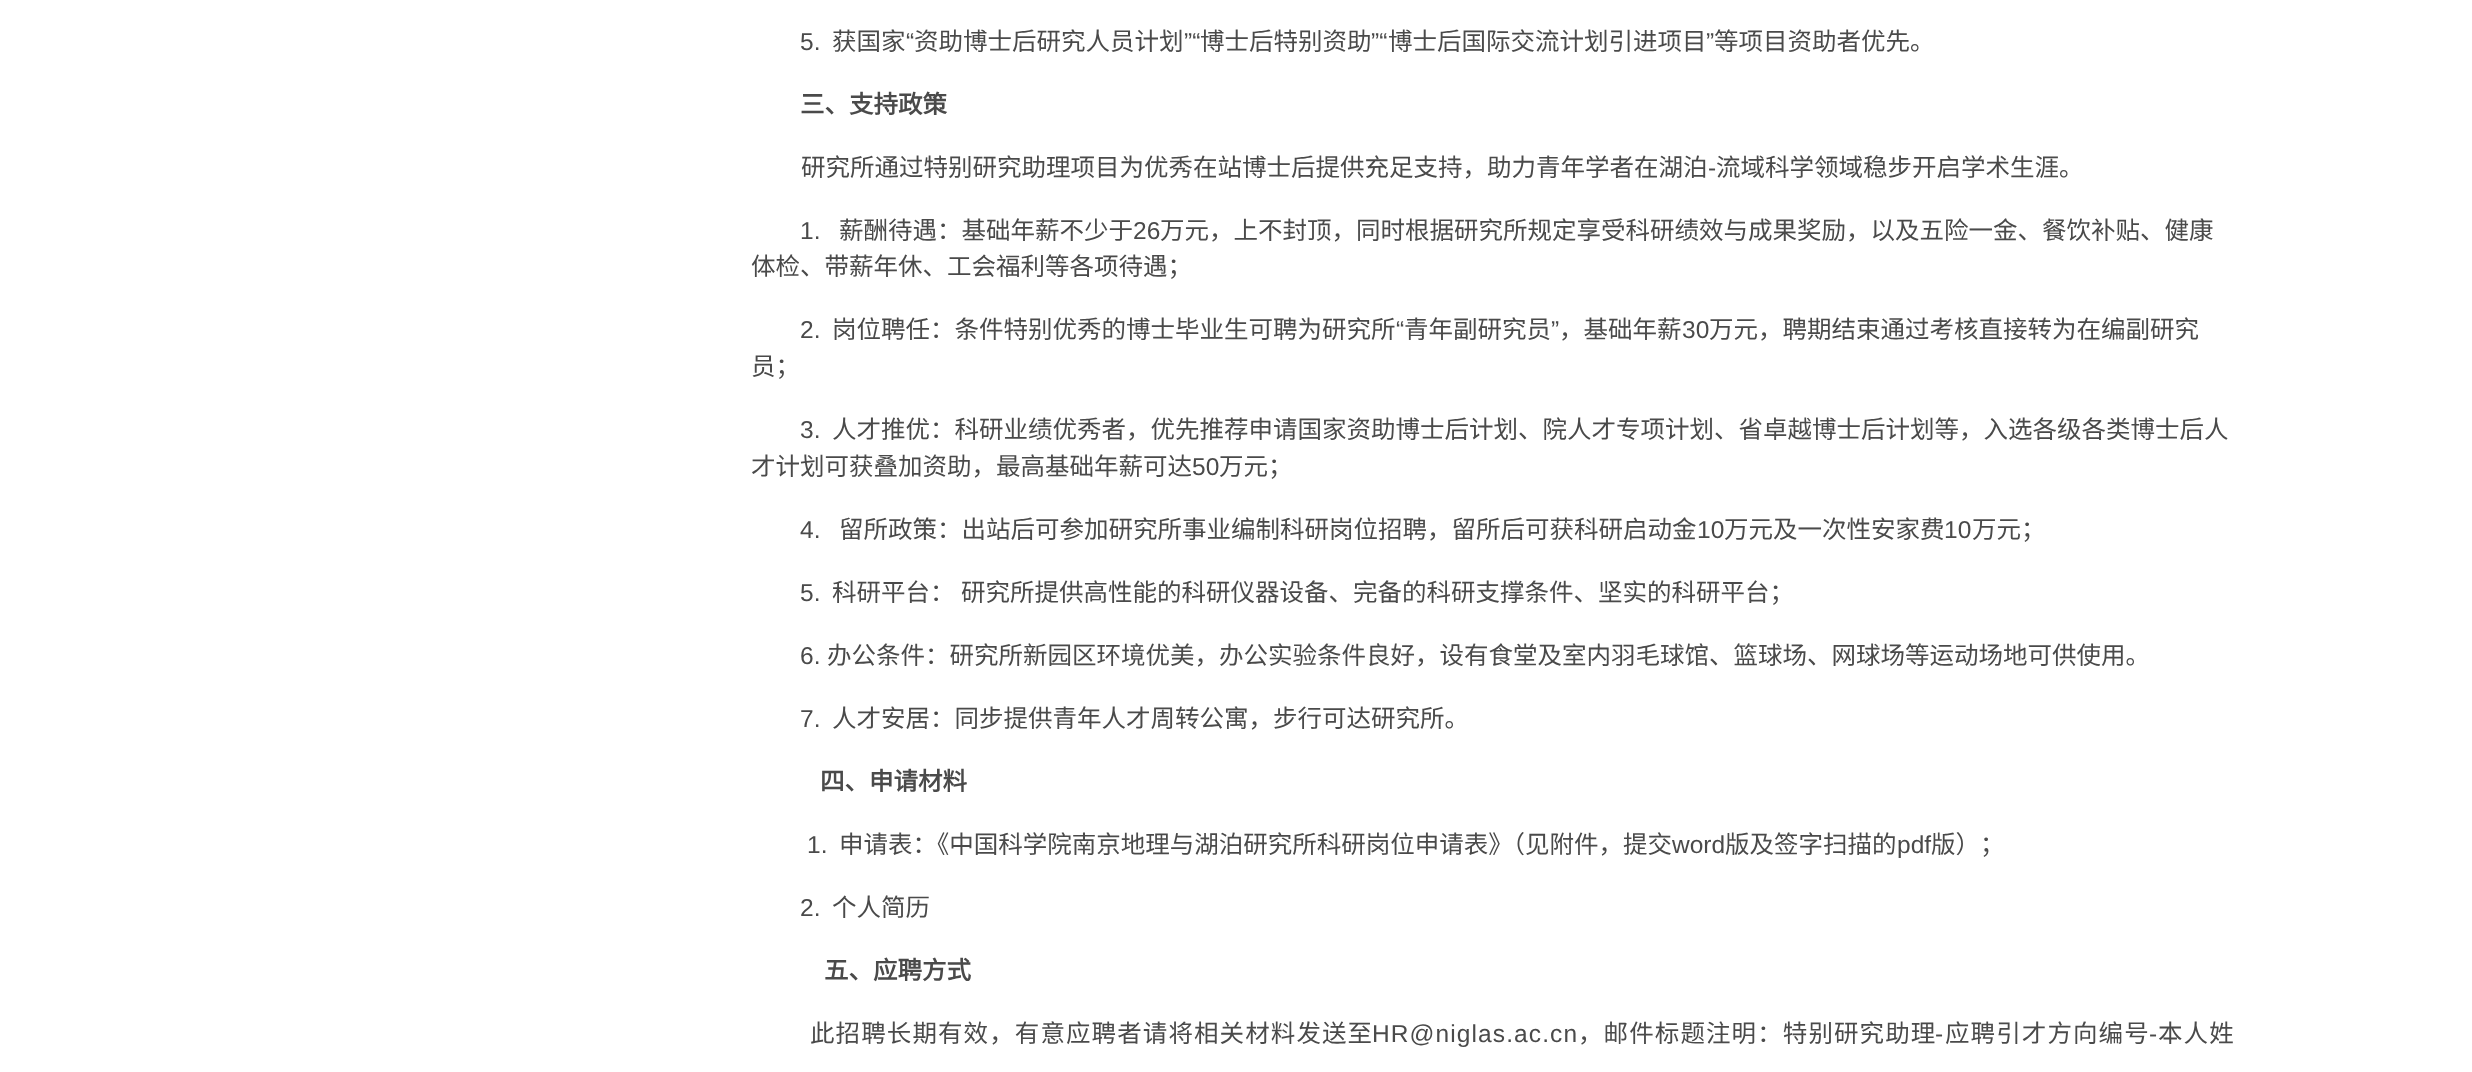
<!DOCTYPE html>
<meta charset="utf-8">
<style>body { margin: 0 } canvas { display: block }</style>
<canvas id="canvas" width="2472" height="1072"></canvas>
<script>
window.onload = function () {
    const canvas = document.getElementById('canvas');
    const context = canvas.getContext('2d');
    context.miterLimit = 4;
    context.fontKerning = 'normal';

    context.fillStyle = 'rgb(255, 255, 255)';
    context.fillRect(0, 0, 2472, 1072);
    context.font = '24.5px Liberation Sans';
    context.fillStyle = 'rgb(74, 74, 74)';
    context.fillText('5.', 800, 50);
    context.font = '24.5px Noto Sans CJK SC';
    context.fillText('获国家', 832, 50);
    context.font = '24.5px Liberation Sans';
    context.fillText('“', 906, 50);
    context.font = '24.5px Noto Sans CJK SC';
    context.fillText('资助博士后研究人员计划', 914, 50);
    context.font = '24.5px Liberation Sans';
    context.fillText('”“', 1184, 50);
    context.font = '24.5px Noto Sans CJK SC';
    context.fillText('博士后特别资助', 1200, 50);
    context.font = '24.5px Liberation Sans';
    context.fillText('”“', 1371, 50);
    context.font = '24.5px Noto Sans CJK SC';
    context.fillText('博士后国际交流计划引进项目', 1388, 50);
    context.font = '24.5px Liberation Sans';
    context.fillText('”', 1706, 50);
    context.font = '24.5px Noto Sans CJK SC';
    context.fillText('等项目资助者优先。', 1714, 50);
    context.font = 'bold 24.5px Noto Sans CJK SC';
    context.fillText('三、支持政策', 800, 113);
    context.font = '24.5px Noto Sans CJK SC';
    context.fillText('研究所通过特别研究助理项目为优秀在站博士后提供充足支持，助力青年学者在湖泊', 801, 176);
    context.font = '24.5px Liberation Sans';
    context.fillText('-', 1708, 176);
    context.font = '24.5px Noto Sans CJK SC';
    context.fillText('流域科学领域稳步开启学术生涯。', 1716, 176);
    context.font = '24.5px Liberation Sans';
    context.fillText('1.', 800, 239);
    context.font = '24.5px Noto Sans CJK SC';
    context.fillText('薪酬待遇：基础年薪不少于', 839, 239);
    context.font = '24.5px Liberation Sans';
    context.fillText('26', 1133, 239);
    context.font = '24.5px Noto Sans CJK SC';
    context.fillText('万元，上不封顶，同时根据研究所规定享受科研绩效与成果奖励，以及五险一金、餐饮补贴、健康', 1160, 239);
    context.fillText('体检、带薪年休、工会福利等各项待遇；', 751, 275);
    context.font = '24.5px Liberation Sans';
    context.fillText('2.', 800, 338);
    context.font = '24.5px Noto Sans CJK SC';
    context.fillText('岗位聘任：条件特别优秀的博士毕业生可聘为研究所', 832, 338);
    context.font = '24.5px Liberation Sans';
    context.fillText('“', 1396, 338);
    context.font = '24.5px Noto Sans CJK SC';
    context.fillText('青年副研究员', 1404, 338);
    context.font = '24.5px Liberation Sans';
    context.fillText('”', 1551, 338);
    context.font = '24.5px Noto Sans CJK SC';
    context.fillText('，基础年薪', 1559, 338);
    context.font = '24.5px Liberation Sans';
    context.fillText('30', 1682, 338);
    context.font = '24.5px Noto Sans CJK SC';
    context.fillText('万元，聘期结束通过考核直接转为在编副研究', 1709, 338);
    context.fillText('员；', 751, 375);
    context.font = '24.5px Liberation Sans';
    context.fillText('3.', 800, 438);
    context.font = '24.5px Noto Sans CJK SC';
    context.fillText('人才推优：科研业绩优秀者，优先推荐申请国家资助博士后计划、院人才专项计划、省卓越博士后计划等，入选各级各类博士后人', 832, 438);
    context.fillText('才计划可获叠加资助，最高基础年薪可达', 751, 475);
    context.font = '24.5px Liberation Sans';
    context.fillText('50', 1192, 475);
    context.font = '24.5px Noto Sans CJK SC';
    context.fillText('万元；', 1219, 475);
    context.font = '24.5px Liberation Sans';
    context.fillText('4.', 800, 538);
    context.font = '24.5px Noto Sans CJK SC';
    context.fillText('留所政策：出站后可参加研究所事业编制科研岗位招聘，留所后可获科研启动金', 839, 538);
    context.font = '24.5px Liberation Sans';
    context.fillText('10', 1697, 538);
    context.font = '24.5px Noto Sans CJK SC';
    context.fillText('万元及一次性安家费', 1724, 538);
    context.font = '24.5px Liberation Sans';
    context.fillText('10', 1944, 538);
    context.font = '24.5px Noto Sans CJK SC';
    context.fillText('万元；', 1972, 538);
    context.font = '24.5px Liberation Sans';
    context.fillText('5.', 800, 601);
    context.wordSpacing = '1px';
    context.font = '24.5px Noto Sans CJK SC';
    context.fillText('科研平台： 研究所提供高性能的科研仪器设备、完备的科研支撑条件、坚实的科研平台；', 832, 601);
    context.wordSpacing = '0px';
    context.font = '24.5px Liberation Sans';
    context.fillText('6.', 800, 664);
    context.font = '24.5px Noto Sans CJK SC';
    context.fillText('办公条件：研究所新园区环境优美，办公实验条件良好，设有食堂及室内羽毛球馆、篮球场、网球场等运动场地可供使用。', 827, 664);
    context.font = '24.5px Liberation Sans';
    context.fillText('7.', 800, 727);
    context.font = '24.5px Noto Sans CJK SC';
    context.fillText('人才安居：同步提供青年人才周转公寓，步行可达研究所。', 832, 727);
    context.font = 'bold 24.5px Noto Sans CJK SC';
    context.fillText('四、申请材料', 820, 790);
    context.font = '24.5px Liberation Sans';
    context.fillText('1.', 807, 853);
    context.font = '24.5px Noto Sans CJK SC';
    context.fillText('申请表：《中国科学院南京地理与湖泊研究所科研岗位申请表》（见附件，提交', 839, 853);
    context.font = '24.5px Liberation Sans';
    context.fillText('word', 1672, 853);
    context.font = '24.5px Noto Sans CJK SC';
    context.fillText('版及签字扫描的', 1725, 853);
    context.font = '24.5px Liberation Sans';
    context.fillText('pdf', 1897, 853);
    context.font = '24.5px Noto Sans CJK SC';
    context.fillText('版）；', 1931, 853);
    context.font = '24.5px Liberation Sans';
    context.fillText('2.', 800, 916);
    context.font = '24.5px Noto Sans CJK SC';
    context.fillText('个人简历', 832, 916);
    context.font = 'bold 24.5px Noto Sans CJK SC';
    context.fillText('五、应聘方式', 824, 979);
    context.letterSpacing = '1.1px';
    context.font = '24.5px Noto Sans CJK SC';
    context.fillText('此招聘长期有效，有意应聘者请将相关材料发送至', 810, 1042);
    context.font = '24.5px Liberation Sans';
    context.fillText('HR@niglas.ac.cn', 1372, 1042);
    context.font = '24.5px Noto Sans CJK SC';
    context.fillText('，邮件标题注明：特别研究助理', 1578, 1042);
    context.font = '24.5px Liberation Sans';
    context.fillText('-', 1935, 1042);
    context.font = '24.5px Noto Sans CJK SC';
    context.fillText('应聘引才方向编号', 1945, 1042);
    context.font = '24.5px Liberation Sans';
    context.fillText('-', 2149, 1042);
    context.font = '24.5px Noto Sans CJK SC';
    context.fillText('本人姓', 2158, 1042);
};
</script>
